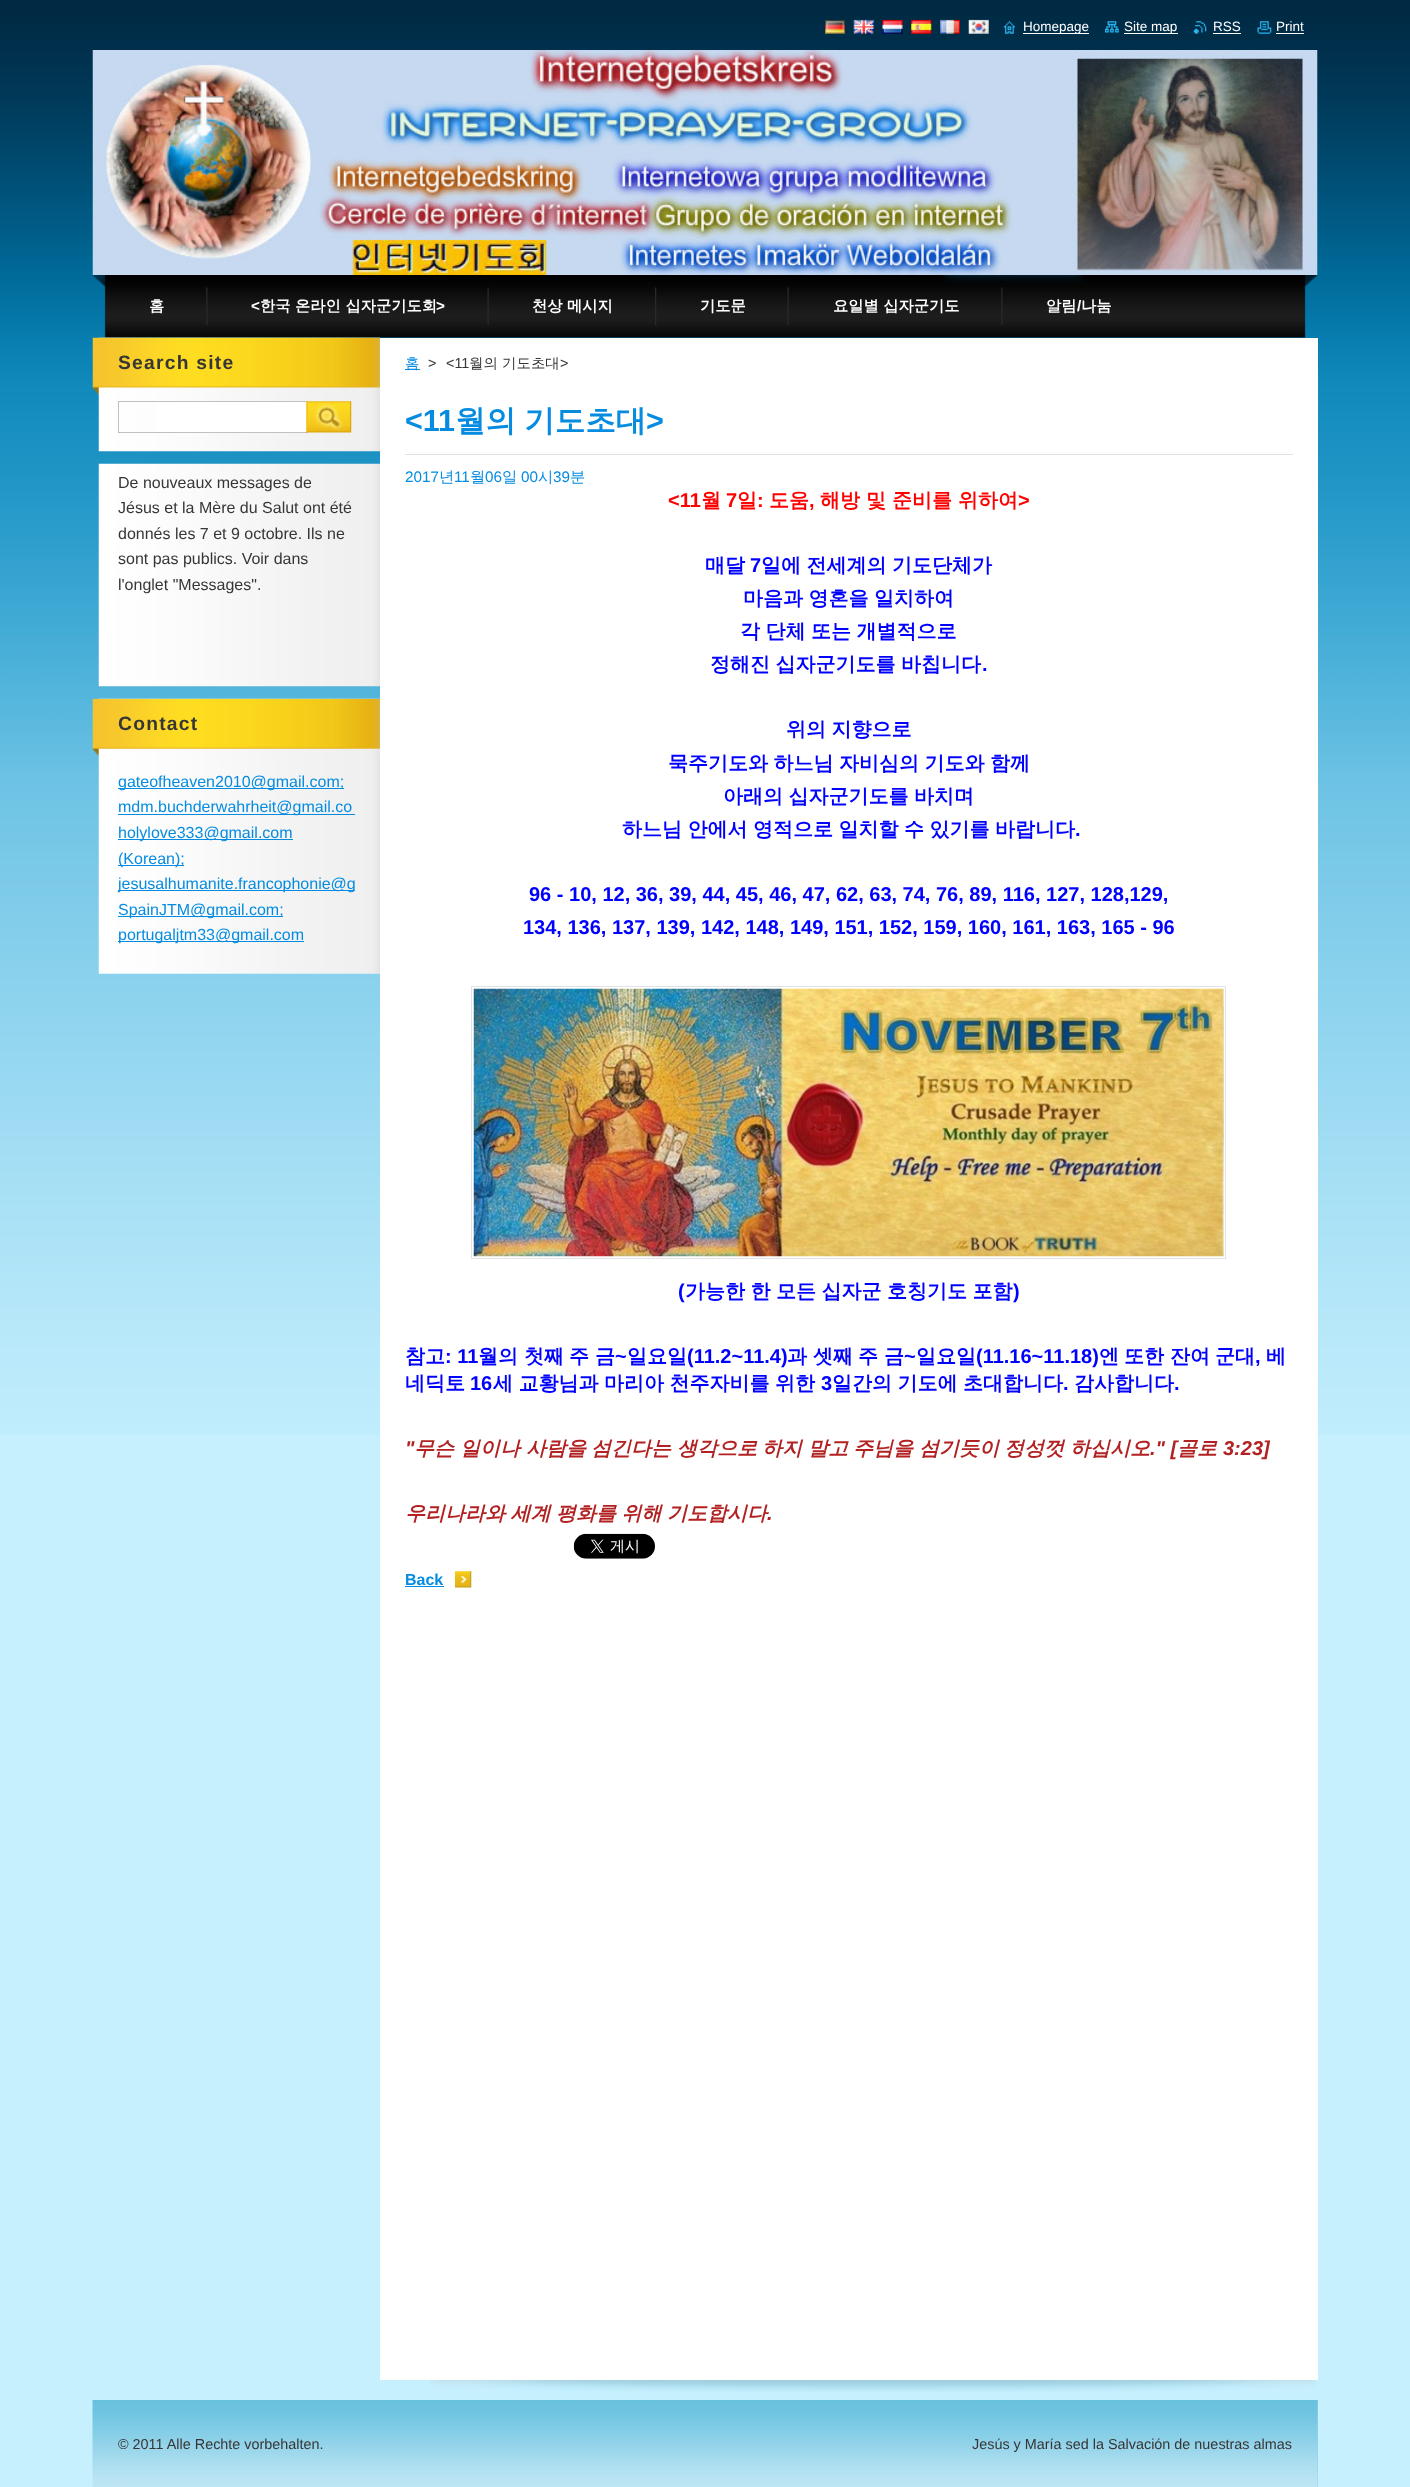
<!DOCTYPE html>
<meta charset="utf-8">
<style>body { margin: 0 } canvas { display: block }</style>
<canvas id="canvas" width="1410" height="2487"></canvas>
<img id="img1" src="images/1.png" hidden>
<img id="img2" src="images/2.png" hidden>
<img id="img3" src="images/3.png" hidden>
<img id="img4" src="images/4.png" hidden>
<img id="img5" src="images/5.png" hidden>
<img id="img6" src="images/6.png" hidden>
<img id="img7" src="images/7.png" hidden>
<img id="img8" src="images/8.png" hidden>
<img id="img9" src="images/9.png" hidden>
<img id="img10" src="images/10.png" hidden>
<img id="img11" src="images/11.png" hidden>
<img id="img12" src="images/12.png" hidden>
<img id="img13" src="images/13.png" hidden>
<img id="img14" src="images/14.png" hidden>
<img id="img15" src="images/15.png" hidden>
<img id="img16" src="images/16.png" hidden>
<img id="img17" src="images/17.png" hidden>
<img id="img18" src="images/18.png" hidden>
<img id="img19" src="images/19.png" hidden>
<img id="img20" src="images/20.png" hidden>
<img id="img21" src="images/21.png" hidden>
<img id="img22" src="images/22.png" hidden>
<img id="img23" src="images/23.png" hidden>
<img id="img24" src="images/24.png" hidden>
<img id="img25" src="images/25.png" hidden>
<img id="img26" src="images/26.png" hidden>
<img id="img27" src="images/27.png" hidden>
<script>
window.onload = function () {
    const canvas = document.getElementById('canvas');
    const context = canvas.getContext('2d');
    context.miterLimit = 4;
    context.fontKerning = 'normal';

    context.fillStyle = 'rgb(198, 240, 254)';
    context.fillRect(0, 0, 1410, 2487);
    context.drawImage(document.getElementById('img1'), 0, 0, 1410, 1435);
    context.drawImage(document.getElementById('img2'), 825, 20, 20, 14);
    context.drawImage(document.getElementById('img3'), 853, 19, 21, 15);
    context.drawImage(document.getElementById('img4'), 882, 19, 21, 15);
    context.drawImage(document.getElementById('img5'), 911, 19, 21, 15);
    context.drawImage(document.getElementById('img6'), 940, 19, 20, 15);
    context.drawImage(document.getElementById('img7'), 968, 19, 21, 15);
    context.drawImage(document.getElementById('img8'), 1003, 21, 12, 13);
    context.fillStyle = 'rgb(255, 255, 255)';
    context.fillRect(1023, 33, 66, 1);
    context.drawImage(document.getElementById('img9'), 1105, 21, 14, 12);
    context.fillRect(1124, 33, 54, 1);
    context.drawImage(document.getElementById('img10'), 1193, 21, 14, 13);
    context.fillRect(1213, 33, 28, 1);
    context.drawImage(document.getElementById('img11'), 1257, 21, 15, 13);
    context.fillRect(1276, 33, 28, 1);
    context.drawImage(document.getElementById('img12'), 92, 50, 1226, 225);
    context.drawImage(document.getElementById('img13'), 92, 275, 1226, 63);
    context.drawImage(document.getElementById('img14'), 206, 287, 2, 38);
    context.drawImage(document.getElementById('img15'), 487, 287, 2, 38);
    context.drawImage(document.getElementById('img16'), 655, 287, 2, 38);
    context.drawImage(document.getElementById('img15'), 787, 287, 2, 38);
    context.drawImage(document.getElementById('img14'), 1001, 287, 2, 38);
    context.drawImage(document.getElementById('img17'), 98, 337, 282, 115);
    context.drawImage(document.getElementById('img18'), 92, 337, 288, 58);
    context.fillRect(156, 402, 151, 30);
    context.strokeStyle = 'rgb(193, 193, 193)';
    context.strokeRect(118.5, 401.5, 189, 31);
    context.drawImage(document.getElementById('img19'), 306, 401, 46, 32);
    context.drawImage(document.getElementById('img20'), 98, 463, 282, 224);
    context.drawImage(document.getElementById('img21'), 98, 698, 282, 276);
    context.drawImage(document.getElementById('img22'), 92, 698, 288, 59);
    context.fillStyle = 'rgb(5, 140, 225)';
    context.fillRect(118, 788, 226, 1);
    context.fillRect(118, 814, 237, 1);
    context.fillRect(118, 839, 175, 1);
    context.fillRect(118, 865, 66, 1);
    context.fillRect(118, 890, 237, 1);
    context.fillRect(118, 916, 165, 1);
    context.fillRect(118, 941, 186, 1);
    context.drawImage(document.getElementById('img23'), 430, 2380, 887, 12);
    context.fillStyle = 'rgb(255, 255, 255)';
    context.fillRect(380, 338, 938, 2042);
    context.fillStyle = 'rgb(5, 140, 225)';
    context.fillRect(405, 369, 15, 1);
    context.fillStyle = 'rgb(225, 225, 225)';
    context.fillRect(405, 454, 888, 1);
    context.strokeStyle = 'rgb(224, 226, 230)';
    context.strokeRect(471.5, 986.5, 754, 272);
    context.drawImage(document.getElementById('img24'), 473, 988, 751, 269);
    context.drawImage(document.getElementById('img25'), 573, 1533, 82, 26);
    context.drawImage(document.getElementById('img26'), 455, 1571, 17, 17);
    context.fillStyle = 'rgb(5, 140, 225)';
    context.fillRect(405, 1586, 39, 1);
    context.fillStyle = 'rgb(144, 210, 233)';
    context.fillRect(1317, 2400, 1, 87);
    context.drawImage(document.getElementById('img27'), 92, 2400, 1226, 87);
    context.font = '13.5px Liberation Sans';
    context.fillStyle = 'rgb(255, 255, 255)';
    context.fillText('Homepage', 1023, 31);
    context.fillText('Site map', 1124, 31);
    context.fillText('RSS', 1213, 31);
    context.fillText('Print', 1276, 31);
    context.font = 'bold 15.25px WenQuanYi Zen Hei';
    context.fillText('홈', 149, 311);
    context.font = 'bold 15.25px Liberation Sans';
    context.fillText('<', 251, 311);
    context.font = 'bold 15.25px WenQuanYi Zen Hei';
    context.fillText('한국 온라인 십자군기도회', 260, 311);
    context.font = 'bold 15.25px Liberation Sans';
    context.fillText('>', 436, 311);
    context.font = 'bold 15.25px WenQuanYi Zen Hei';
    context.fillText('천상 메시지', 532, 311);
    context.fillText('기도문', 700, 311);
    context.fillText('요일별 십자군기도', 833, 311);
    context.fillText('알림', 1046, 311);
    context.font = 'bold 15.25px Liberation Sans';
    context.fillText('/', 1077, 311);
    context.font = 'bold 15.25px WenQuanYi Zen Hei';
    context.fillText('나눔', 1081, 311);
    context.letterSpacing = '1.25px';
    context.font = 'bold 19.25px Liberation Sans';
    context.fillStyle = 'rgb(54, 54, 54)';
    context.fillText('Search site', 118, 369);
    context.letterSpacing = '0px';
    context.font = '16px Liberation Sans';
    context.fillText('De nouveaux messages de', 118, 488);
    context.fillText('Jésus et la Mère du Salut ont été', 118, 513);
    context.fillText('donnés les 7 et 9 octobre. Ils ne', 118, 539);
    context.fillText('sont pas publics. Voir dans', 118, 564);
    context.fillText('l\'onglet "Messages".', 118, 590);
    context.letterSpacing = '1.25px';
    context.font = 'bold 19.25px Liberation Sans';
    context.fillText('Contact', 118, 730);
    context.letterSpacing = '0px';
    context.font = '16px Liberation Sans';
    context.fillStyle = 'rgb(5, 140, 225)';
    context.fillText('gateofheaven2010@gmail.com;', 118, 787);
    context.fillText('mdm.buchderwahrheit@gmail.co', 118, 812);
    context.fillText('holylove333@gmail.com', 118, 838);
    context.fillText('(Korean);', 118, 864);
    context.fillText('jesusalhumanite.francophonie@g', 118, 889);
    context.fillText('SpainJTM@gmail.com;', 118, 915);
    context.fillText('portugaljtm33@gmail.com', 118, 940);
    context.font = '500 14.4px WenQuanYi Zen Hei';
    context.fillText('홈', 405, 368);
    context.font = '14.4px Liberation Sans';
    context.fillStyle = 'rgb(54, 54, 54)';
    context.fillText('>', 428, 368);
    context.fillText('<11', 446, 368);
    context.font = '500 14.4px WenQuanYi Zen Hei';
    context.fillText('월의 기도초대', 469, 368);
    context.font = '14.4px Liberation Sans';
    context.fillText('>', 560, 368);
    context.font = 'bold 30.5px Liberation Sans';
    context.fillStyle = 'rgb(5, 140, 225)';
    context.fillText('<11', 405, 431);
    context.wordSpacing = '-1px';
    context.font = 'bold 30.5px WenQuanYi Zen Hei';
    context.fillText('월의 기도초대', 455, 431);
    context.wordSpacing = '0px';
    context.font = 'bold 30.5px Liberation Sans';
    context.fillText('>', 646, 431);
    context.font = '15.25px Liberation Sans';
    context.fillText('2017', 405, 482);
    context.font = '500 15.25px WenQuanYi Zen Hei';
    context.fillText('년', 439, 482);
    context.font = '15.25px Liberation Sans';
    context.fillText('11', 454, 482);
    context.font = '500 15.25px WenQuanYi Zen Hei';
    context.fillText('월', 470, 482);
    context.font = '15.25px Liberation Sans';
    context.fillText('06', 485, 482);
    context.font = '500 15.25px WenQuanYi Zen Hei';
    context.fillText('일', 502, 482);
    context.font = '15.25px Liberation Sans';
    context.fillText('00', 521, 482);
    context.font = '500 15.25px WenQuanYi Zen Hei';
    context.fillText('시', 538, 482);
    context.font = '15.25px Liberation Sans';
    context.fillText('39', 553, 482);
    context.font = '500 15.25px WenQuanYi Zen Hei';
    context.fillText('분', 570, 482);
    context.font = 'bold 20px Liberation Sans';
    context.fillStyle = 'rgb(255, 0, 0)';
    context.fillText('<11', 668, 507);
    context.font = 'bold 20px WenQuanYi Zen Hei';
    context.fillText('월', 701, 507);
    context.font = 'bold 20px Liberation Sans';
    context.fillText('7', 726, 507);
    context.font = 'bold 20px WenQuanYi Zen Hei';
    context.fillText('일', 737, 507);
    context.font = 'bold 20px Liberation Sans';
    context.fillText(':', 757, 507);
    context.font = 'bold 20px WenQuanYi Zen Hei';
    context.fillText('도움', 769, 507);
    context.font = 'bold 20px Liberation Sans';
    context.fillText(',', 809, 507);
    context.font = 'bold 20px WenQuanYi Zen Hei';
    context.fillText('해방 및 준비를 위하여', 820, 507);
    context.font = 'bold 20px Liberation Sans';
    context.fillText('>', 1018, 507);
    context.font = 'bold 20px WenQuanYi Zen Hei';
    context.fillStyle = 'rgb(0, 0, 255)';
    context.fillText('매달', 705, 572);
    context.font = 'bold 20px Liberation Sans';
    context.fillText('7', 750, 572);
    context.wordSpacing = '-0.5px';
    context.font = 'bold 20px WenQuanYi Zen Hei';
    context.fillText('일에 전세계의 기도단체가', 761, 572);
    context.fillText('마음과 영혼을 일치하여', 743, 605);
    context.fillText('각 단체 또는 개별적으로', 740, 638);
    context.fillText('정해진 십자군기도를 바칩니다', 710, 671);
    context.wordSpacing = '0px';
    context.font = 'bold 20px Liberation Sans';
    context.fillText('.', 982, 671);
    context.wordSpacing = '-0.5px';
    context.font = 'bold 20px WenQuanYi Zen Hei';
    context.fillText('위의 지향으로', 786, 736);
    context.fillText('묵주기도와 하느님 자비심의 기도와 함께', 668, 770);
    context.fillText('아래의 십자군기도를 바치며', 723, 803);
    context.fillText('하느님 안에서 영적으로 일치할 수 있기를 바랍니다', 622, 836);
    context.wordSpacing = '0px';
    context.font = 'bold 20px Liberation Sans';
    context.fillText('.', 1075, 836);
    context.fillText('96 - 10, 12, 36, 39, 44, 45, 46, 47, 62, 63, 74, 76, 89, 116, 127, 128,129,', 529, 901);
    context.fillText('134, 136, 137, 139, 142, 148, 149, 151, 152, 159, 160, 161, 163, 165 - 96', 523, 934);
    context.fillText('(', 678, 1298);
    context.wordSpacing = '-0.5px';
    context.font = 'bold 20px WenQuanYi Zen Hei';
    context.fillText('가능한 한 모든 십자군 호칭기도 포함', 685, 1298);
    context.wordSpacing = '0px';
    context.font = 'bold 20px Liberation Sans';
    context.fillText(')', 1013, 1298);
    context.font = 'bold 20px WenQuanYi Zen Hei';
    context.fillText('참고', 405, 1363);
    context.font = 'bold 20px Liberation Sans';
    context.fillText(': 11', 445, 1363);
    context.font = 'bold 20px WenQuanYi Zen Hei';
    context.fillText('월의', 478, 1363);
    context.fillText('첫째', 524, 1363);
    context.fillText('주', 569, 1363);
    context.fillText('금', 595, 1363);
    context.font = 'bold 20px Liberation Sans';
    context.fillText('~', 615, 1363);
    context.font = 'bold 20px WenQuanYi Zen Hei';
    context.fillText('일요일', 627, 1363);
    context.font = 'bold 20px Liberation Sans';
    context.fillText('(11.2~11.4)', 687, 1363);
    context.font = 'bold 20px WenQuanYi Zen Hei';
    context.fillText('과', 787, 1363);
    context.fillText('셋째', 813, 1363);
    context.fillText('주', 858, 1363);
    context.fillText('금', 884, 1363);
    context.font = 'bold 20px Liberation Sans';
    context.fillText('~', 904, 1363);
    context.font = 'bold 20px WenQuanYi Zen Hei';
    context.fillText('일요일', 916, 1363);
    context.font = 'bold 20px Liberation Sans';
    context.fillText('(11.16~11.18)', 976, 1363);
    context.font = 'bold 20px WenQuanYi Zen Hei';
    context.fillText('엔', 1099, 1363);
    context.fillText('또한', 1124, 1363);
    context.fillText('잔여', 1170, 1363);
    context.fillText('군대', 1215, 1363);
    context.fillText('베', 1266, 1363);
    context.font = 'bold 20px Liberation Sans';
    context.fillText(',', 1255, 1363);
    context.font = 'bold 20px WenQuanYi Zen Hei';
    context.fillText('네딕토', 405, 1390);
    context.font = 'bold 20px Liberation Sans';
    context.fillText('16', 470, 1390);
    context.wordSpacing = '-0.5px';
    context.font = 'bold 20px WenQuanYi Zen Hei';
    context.fillText('세 교황님과 마리아 천주자비를 위한', 493, 1390);
    context.wordSpacing = '0px';
    context.font = 'bold 20px Liberation Sans';
    context.fillText('3', 821, 1390);
    context.wordSpacing = '-0.5px';
    context.font = 'bold 20px WenQuanYi Zen Hei';
    context.fillText('일간의 기도에 초대합니다', 832, 1390);
    context.wordSpacing = '0px';
    context.font = 'bold 20px Liberation Sans';
    context.fillText('.', 1063, 1390);
    context.font = 'bold 20px WenQuanYi Zen Hei';
    context.fillText('감사합니다', 1074, 1390);
    context.font = 'bold 20px Liberation Sans';
    context.fillText('.', 1174, 1390);
    context.font = 'italic bold 20px Liberation Sans';
    context.fillStyle = 'rgb(178, 34, 34)';
    context.fillText('"', 405, 1455);
    context.font = 'italic bold 20px WenQuanYi Zen Hei';
    context.fillText('무슨', 414, 1455);
    context.fillText('일이나', 460, 1455);
    context.fillText('사람을', 526, 1455);
    context.fillText('섬긴다는', 591, 1455);
    context.fillText('생각으로', 677, 1455);
    context.fillText('하지', 762, 1455);
    context.fillText('말고', 808, 1455);
    context.fillText('주님을', 853, 1455);
    context.fillText('섬기듯이', 919, 1455);
    context.fillText('정성껏', 1004, 1455);
    context.fillText('하십시오', 1070, 1455);
    context.font = 'italic bold 20px Liberation Sans';
    context.fillText('." [', 1150, 1455);
    context.font = 'italic bold 20px WenQuanYi Zen Hei';
    context.fillText('골로', 1177, 1455);
    context.font = 'italic bold 20px Liberation Sans';
    context.fillText('3:23]', 1223, 1455);
    context.wordSpacing = '-0.5px';
    context.font = 'italic bold 20px WenQuanYi Zen Hei';
    context.fillText('우리나라와 세계 평화를 위해 기도합시다', 405, 1520);
    context.wordSpacing = '0px';
    context.font = 'italic bold 20px Liberation Sans';
    context.fillText('.', 767, 1520);
    context.font = 'bold 16px Liberation Sans';
    context.fillStyle = 'rgb(5, 140, 225)';
    context.fillText('Back', 405, 1585);
    context.font = '14.4px Liberation Sans';
    context.fillStyle = 'rgb(54, 54, 54)';
    context.fillText('© 2011 Alle Rechte vorbehalten.', 118, 2449);
    context.fillText('Jesús y María sed la Salvación de nuestras almas', 972, 2449);
};
</script>
